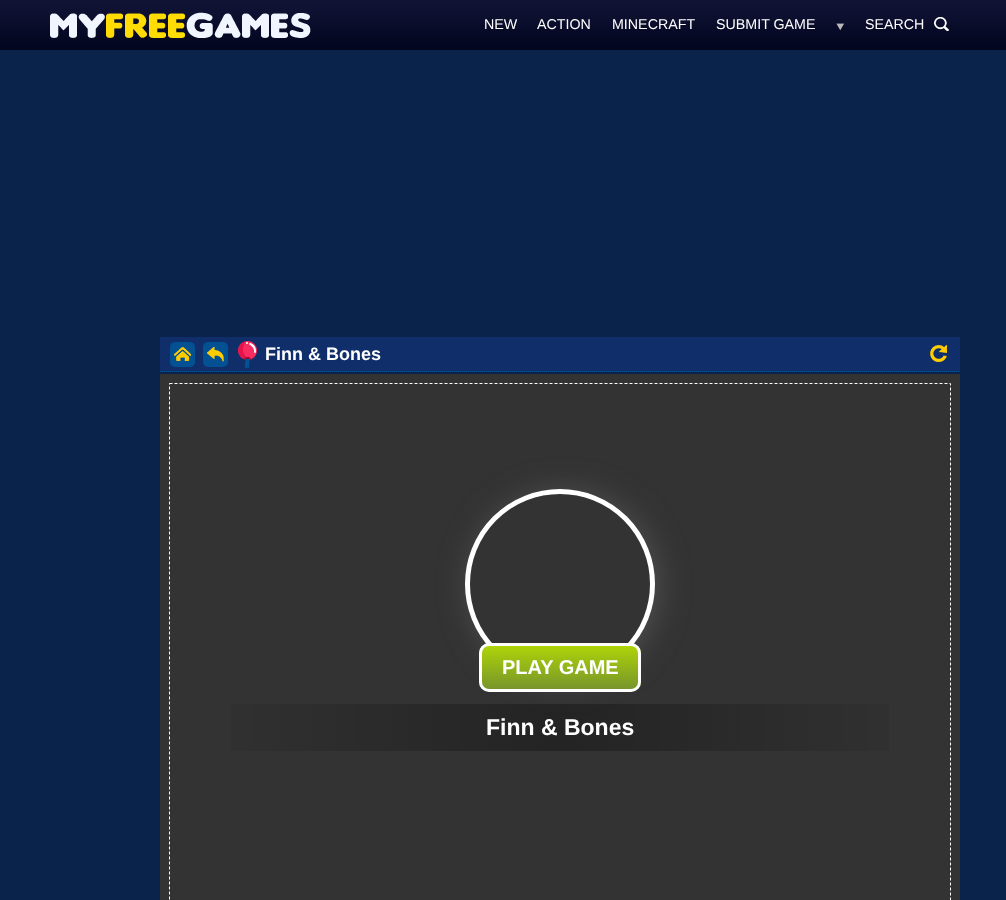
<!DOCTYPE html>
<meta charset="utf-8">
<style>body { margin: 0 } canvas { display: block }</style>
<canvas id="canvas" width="1006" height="900"></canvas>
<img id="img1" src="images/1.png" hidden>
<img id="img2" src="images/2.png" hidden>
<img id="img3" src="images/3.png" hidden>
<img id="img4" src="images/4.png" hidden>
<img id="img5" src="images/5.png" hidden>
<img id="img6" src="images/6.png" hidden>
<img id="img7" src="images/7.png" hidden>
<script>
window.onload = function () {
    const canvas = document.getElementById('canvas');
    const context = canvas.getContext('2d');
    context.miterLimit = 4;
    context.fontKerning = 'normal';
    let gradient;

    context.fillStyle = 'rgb(10, 35, 75)';
    context.fillRect(0, 0, 1006, 900);
    gradient = context.createLinearGradient(503, 0, 503, 50);
    gradient.addColorStop(0, 'rgb(18, 20, 55)');
    gradient.addColorStop(1, 'rgb(1, 5, 30)');
    context.fillStyle = gradient;
    context.fillRect(0, 0, 1006, 50);
    context.drawImage(document.getElementById('img1'), 50, 12, 261, 26);
    context.drawImage(document.getElementById('img2'), 836, 23, 8, 8);
    context.drawImage(document.getElementById('img3'), 934, 17, 15, 14);
    context.fillStyle = 'rgb(16, 46, 105)';
    context.fillRect(160, 337, 800, 35);
    context.beginPath();
    context.moveTo(160, 371.5);
    context.lineTo(960, 371.5);
    context.strokeStyle = 'rgb(3, 81, 147)';
    context.setLineDash([1, 1]);
    context.stroke();
    context.drawImage(document.getElementById('img4'), 170, 342, 25, 25);
    context.drawImage(document.getElementById('img5'), 203, 342, 25, 25);
    context.drawImage(document.getElementById('img6'), 238, 341, 19, 27);
    context.drawImage(document.getElementById('img7'), 930, 345, 17, 17);
    context.fillStyle = 'rgb(51, 51, 51)';
    context.fillRect(160, 374, 800, 526);
    context.beginPath();
    context.moveTo(169.5, 383.5);
    context.lineTo(950.5, 383.5);
    context.lineTo(950.5, 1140.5);
    context.lineTo(169.5, 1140.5);
    context.closePath();
    context.strokeStyle = 'rgb(255, 255, 255)';
    context.setLineDash([3, 2]);
    context.stroke();
    context.save();
    context.beginPath();
    context.moveTo(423, 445);
    context.lineTo(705, 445);
    context.lineTo(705, 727);
    context.lineTo(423, 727);
    context.closePath();
    context.moveTo(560, 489);
    context.bezierCurveTo(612.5, 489, 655, 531.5, 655, 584);
    context.bezierCurveTo(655, 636.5, 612.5, 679, 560, 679);
    context.bezierCurveTo(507.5, 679, 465, 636.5, 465, 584);
    context.bezierCurveTo(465, 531.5, 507.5, 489, 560, 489);
    context.closePath();
    context.clip('evenodd');
    context.fillStyle = 'rgb(80, 80, 80)';
    context.filter = 'blur(15px)';
    context.beginPath();
    context.roundRect(469, 491, 190, 190, 95);
    context.fill();
    context.filter = 'none';
    context.restore();
    context.beginPath();
    context.arc(560, 584, 92.5, 0, 2 * Math.PI);
    context.lineWidth = 5;
    context.setLineDash([]);
    context.stroke();
    context.save();
    context.beginPath();
    context.roundRect(479, 643, 162, 49, 10);
    context.clip();
    gradient = context.createLinearGradient(560, 646, 560, 689);
    gradient.addColorStop(0, 'rgb(174, 212, 9)');
    gradient.addColorStop(1, 'rgb(119, 149, 43)');
    context.fillStyle = gradient;
    context.fillRect(479, 646, 162, 43);
    context.restore();
    context.beginPath();
    context.roundRect(480.5, 644.5, 159, 46, 8.5);
    context.lineWidth = 3;
    context.stroke();
    gradient = context.createLinearGradient(160, 728, 960, 728);
    gradient.addColorStop(0, 'rgba(0, 0, 0, 0)');
    gradient.addColorStop(0.5, 'rgba(0, 0, 0, 0.3)');
    gradient.addColorStop(1, 'rgba(0, 0, 0, 0)');
    context.fillStyle = gradient;
    context.fillRect(231, 704, 658, 47);
    context.font = '14.25px Liberation Sans';
    context.fillStyle = 'rgb(255, 255, 255)';
    context.fillText('NEW', 484, 29);
    context.fillText('ACTION', 537, 29);
    context.fillText('MINECRAFT', 612, 29);
    context.fillText('SUBMIT GAME', 716, 29);
    context.fillText('SEARCH', 865, 29);
    context.font = 'bold 18px Liberation Sans';
    context.fillText('Finn & Bones', 265, 360);
    context.font = 'bold 20px Liberation Sans';
    context.fillText('PLAY GAME', 502, 674);
    context.font = 'bold 23px Liberation Sans';
    context.fillText('Finn & Bones', 486, 735);
};
</script>
